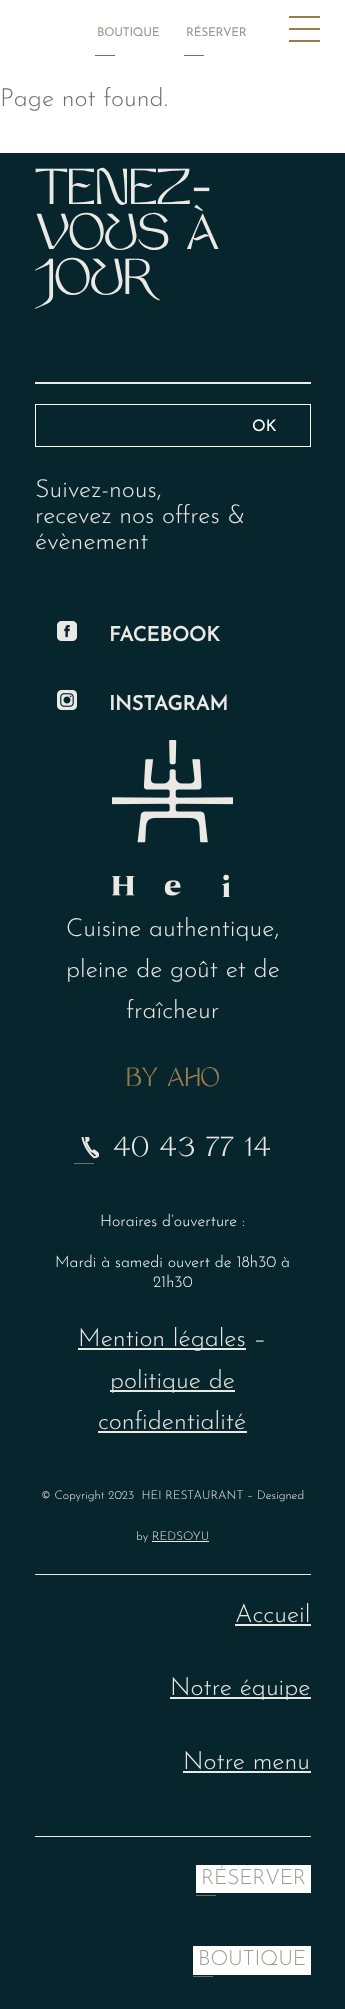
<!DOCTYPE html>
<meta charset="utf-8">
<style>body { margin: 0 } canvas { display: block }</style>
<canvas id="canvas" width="345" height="2009"></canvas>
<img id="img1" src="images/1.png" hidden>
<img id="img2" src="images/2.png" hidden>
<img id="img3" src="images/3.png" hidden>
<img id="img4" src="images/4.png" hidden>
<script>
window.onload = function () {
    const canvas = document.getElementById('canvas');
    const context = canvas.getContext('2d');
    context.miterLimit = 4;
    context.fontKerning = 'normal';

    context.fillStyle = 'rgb(255, 255, 255)';
    context.fillRect(0, 0, 345, 2009);
    context.fillStyle = 'rgb(112, 112, 112)';
    context.fillRect(95, 55, 20, 1);
    context.fillRect(184, 55, 20, 1);
    context.fillStyle = 'rgb(151, 125, 73)';
    context.fillRect(289, 40, 31, 2);
    context.fillRect(289, 16, 31, 2);
    context.fillRect(289, 28, 31, 2);
    context.fillStyle = 'rgb(7, 37, 45)';
    context.fillRect(0, 153, 345, 1856);
    context.fillStyle = 'rgb(235, 235, 235)';
    context.fillRect(35, 382, 276, 2);
    context.strokeStyle = 'rgb(255, 255, 255)';
    context.strokeRect(35.5, 404.5, 275, 42);
    context.drawImage(document.getElementById('img1'), 57, 621, 20, 20);
    context.drawImage(document.getElementById('img2'), 57, 690, 20, 20);
    context.drawImage(document.getElementById('img3'), 112, 740, 121, 157);
    context.drawImage(document.getElementById('img4'), 81, 1137, 18, 22);
    context.fillStyle = 'rgb(112, 112, 112)';
    context.fillRect(74, 1163, 20, 1);
    context.fillStyle = 'rgb(234, 233, 227)';
    context.fillRect(78, 1348, 168, 2);
    context.fillRect(110, 1390, 125, 2);
    context.fillRect(98, 1431, 149, 2);
    context.fillRect(152, 1541, 57, 1);
    context.fillRect(35, 1574, 276, 1);
    context.fillRect(235, 1624, 76, 2);
    context.fillRect(170, 1697, 141, 2);
    context.fillRect(183, 1771, 128, 2);
    context.fillRect(35, 1836, 276, 1);
    context.fillStyle = 'rgb(255, 255, 255)';
    context.fillRect(196, 1865, 115, 28);
    context.fillStyle = 'rgb(112, 112, 112)';
    context.fillRect(196, 1895, 20, 1);
    context.fillStyle = 'rgb(255, 255, 255)';
    context.fillRect(193, 1946, 118, 29);
    context.fillStyle = 'rgb(112, 112, 112)';
    context.fillRect(193, 1976, 20, 1);
    context.letterSpacing = '-0.25px';
    context.font = '12px Josefin Sans';
    context.fillStyle = 'rgb(154, 155, 149)';
    context.fillText('BOUTIQUE', 97, 36);
    context.fillText('RÉSERVER', 186, 36);
    context.letterSpacing = '0px';
    context.font = '300 25px Josefin Sans';
    context.fillStyle = 'rgb(112, 112, 112)';
    context.fillText('Page not found.', 0, 106);
    context.letterSpacing = '-1.5px';
    context.font = '46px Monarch';
    context.fillStyle = 'rgb(234, 233, 227)';
    context.fillText('TENEZ-', 35, 204);
    context.fillText('VOUS À', 35, 249);
    context.fillText('JOUR', 35, 294);
    context.letterSpacing = '0px';
    context.font = '16px Josefin Sans';
    context.fillStyle = 'rgb(255, 255, 255)';
    context.fillText('OK', 252, 431);
    context.font = '300 25px Josefin Sans';
    context.fillStyle = 'rgb(234, 233, 227)';
    context.fillText('Suivez-nous,', 35, 497);
    context.fillText('recevez nos offres &', 35, 523);
    context.fillText('évènement', 35, 549);
    context.font = 'bold 20px Josefin Sans';
    context.fillText('FACEBOOK', 109, 641);
    context.fillText('INSTAGRAM', 109, 710);
    context.font = '300 25px Josefin Sans';
    context.fillText('Cuisine authentique,', 66, 936);
    context.fillText('pleine de goût et de', 66, 977);
    context.fillText('fraîcheur', 126, 1018);
    context.letterSpacing = '-0.5px';
    context.font = '24px Monarch';
    context.fillStyle = 'rgb(151, 125, 73)';
    context.fillText('BY AHO', 126, 1086);
    context.letterSpacing = '-0.4px';
    context.font = '25px Monarch';
    context.fillStyle = 'rgb(234, 233, 227)';
    context.fillText('40 43 77 14', 112, 1156);
    context.letterSpacing = '0px';
    context.font = '300 16px Josefin Sans';
    context.fillStyle = 'rgb(255, 255, 255)';
    context.fillText('Horaires d’ouverture :', 100, 1226);
    context.fillText('Mardi à samedi ouvert de 18h30 à', 55, 1267);
    context.fillText('21h30', 153, 1287);
    context.font = '300 25px Josefin Sans';
    context.fillStyle = 'rgb(234, 233, 227)';
    context.fillText('Mention légales –', 78, 1346);
    context.fillText('politique de', 110, 1388);
    context.fillText('confidentialité', 98, 1429);
    context.font = '300 12px Josefin Sans';
    context.fillText('© Copyright 2023  HEI RESTAURANT – Designed', 41, 1499);
    context.fillText('by REDSOYU', 136, 1540);
    context.font = '300 25px Josefin Sans';
    context.fillText('Accueil', 235, 1622);
    context.fillText('Notre équipe', 170, 1695);
    context.fillText('Notre menu', 183, 1769);
    context.letterSpacing = '-0.25px';
    context.font = '300 21px Josefin Sans';
    context.fillStyle = 'rgb(154, 155, 149)';
    context.fillText('RÉSERVER', 201, 1884);
    context.fillText('BOUTIQUE', 198, 1965);
};
</script>
